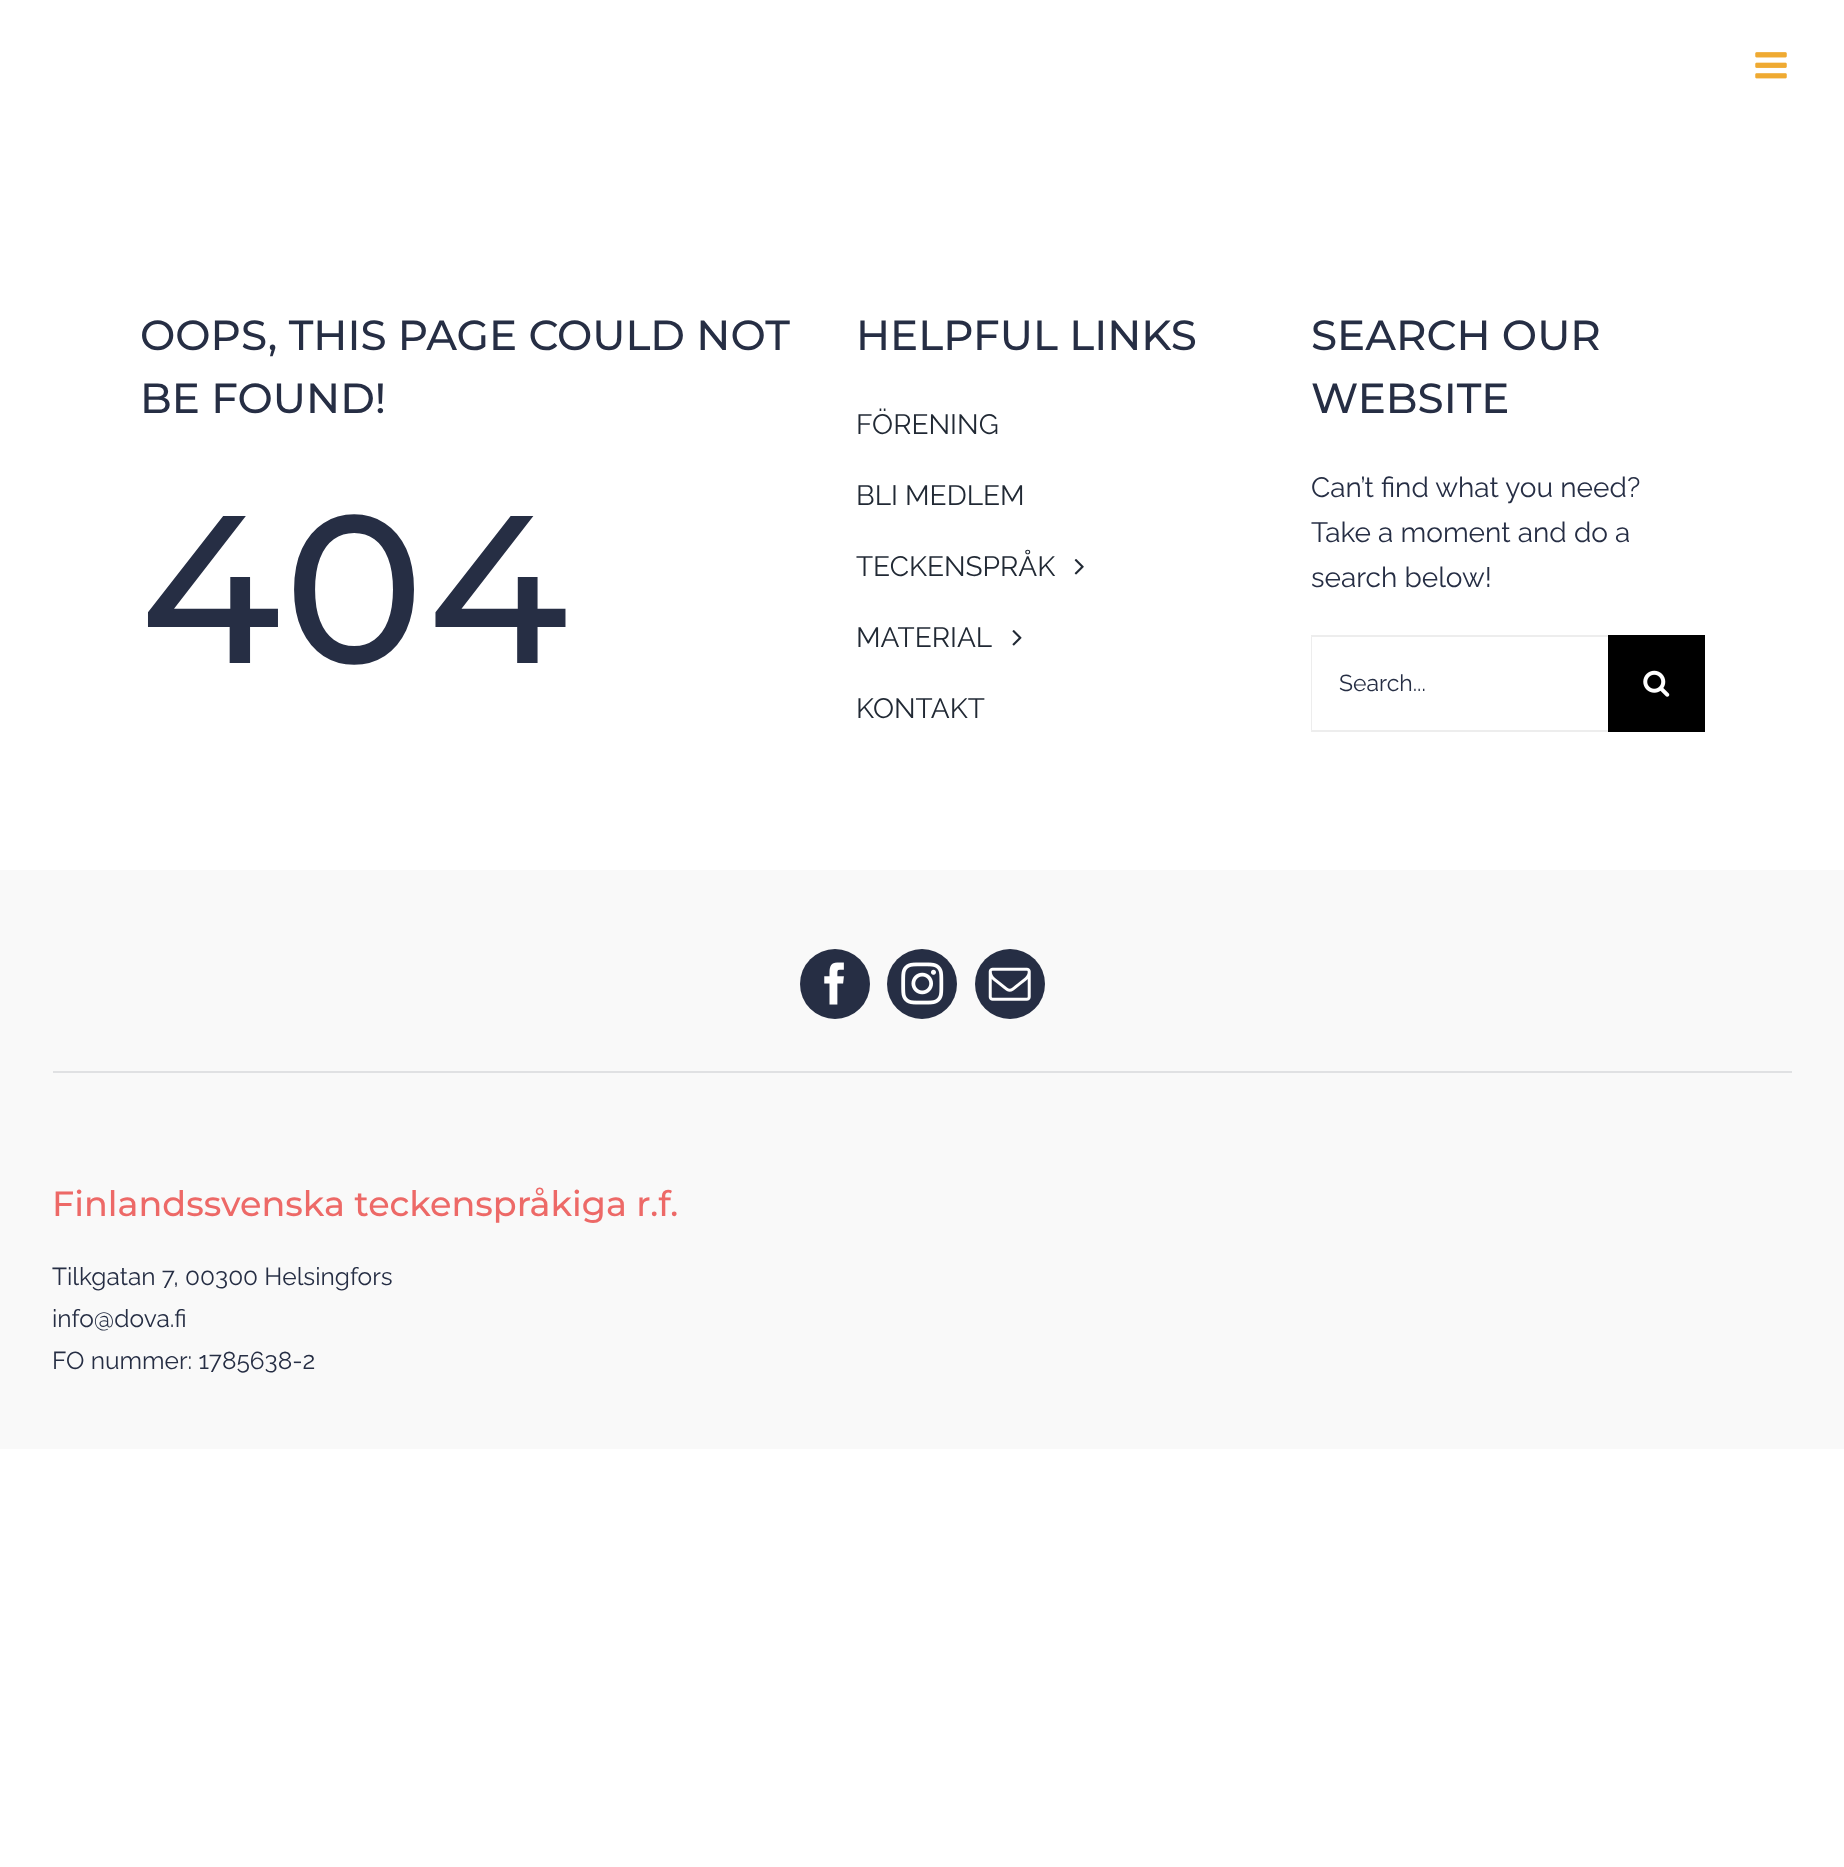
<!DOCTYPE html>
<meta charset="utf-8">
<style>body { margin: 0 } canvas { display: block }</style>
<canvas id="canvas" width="1844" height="1867"></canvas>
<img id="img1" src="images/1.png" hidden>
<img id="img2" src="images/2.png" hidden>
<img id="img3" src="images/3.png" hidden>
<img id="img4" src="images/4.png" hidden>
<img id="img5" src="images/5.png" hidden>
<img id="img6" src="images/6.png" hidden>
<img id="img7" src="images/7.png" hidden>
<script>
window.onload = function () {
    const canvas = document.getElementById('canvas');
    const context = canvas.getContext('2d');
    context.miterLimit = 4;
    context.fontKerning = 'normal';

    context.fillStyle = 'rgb(255, 255, 255)';
    context.fillRect(0, 0, 1844, 1867);
    context.drawImage(document.getElementById('img1'), 1755, 52, 32, 27);
    context.drawImage(document.getElementById('img2'), 1074, 559, 10, 16);
    context.drawImage(document.getElementById('img3'), 1012, 630, 10, 16);
    context.fillStyle = 'rgb(237, 237, 237)';
    context.beginPath();
    context.moveTo(1311, 635);
    context.lineTo(1608, 635);
    context.lineTo(1608, 637);
    context.lineTo(1312, 637);
    context.closePath();
    context.fill();
    context.beginPath();
    context.moveTo(1608, 732);
    context.lineTo(1311, 732);
    context.lineTo(1312, 730);
    context.lineTo(1608, 730);
    context.closePath();
    context.fill();
    context.fillStyle = 'rgba(219, 219, 219, 0.5)';
    context.beginPath();
    context.moveTo(1311, 732);
    context.lineTo(1311, 635);
    context.lineTo(1312, 637);
    context.lineTo(1312, 730);
    context.closePath();
    context.fill();
    context.fillStyle = 'rgb(0, 0, 0)';
    context.fillRect(1608, 635, 97, 97);
    context.drawImage(document.getElementById('img4'), 1643, 670, 27, 27);
    context.fillStyle = 'rgb(249, 249, 249)';
    context.fillRect(0, 870, 1844, 579);
    context.fillStyle = 'rgb(38, 46, 68)';
    context.beginPath();
    context.arc(835, 984, 35, 0, 2 * Math.PI);
    context.fill();
    context.drawImage(document.getElementById('img5'), 824, 962, 20, 43);
    context.beginPath();
    context.arc(922, 984, 35, 0, 2 * Math.PI);
    context.fill();
    context.drawImage(document.getElementById('img6'), 901, 962, 43, 43);
    context.beginPath();
    context.arc(1010, 984, 35, 0, 2 * Math.PI);
    context.fill();
    context.drawImage(document.getElementById('img7'), 988, 967, 43, 34);
    context.fillStyle = 'rgb(224, 225, 227)';
    context.fillRect(53, 1071, 1739, 2);
    context.font = '100 42px Montserrat';
    context.fillStyle = 'rgb(38, 46, 68)';
    context.fillText('OOPS, THIS PAGE COULD NOT', 140, 350);
    context.fillText('BE FOUND!', 140, 413);
    context.letterSpacing = '3.5px';
    context.font = '100 210px Montserrat';
    context.fillText('404', 140, 663);
    context.letterSpacing = '0px';
    context.font = '100 42px Montserrat';
    context.fillText('HELPFUL LINKS', 856, 350);
    context.font = '28px Raleway';
    context.fillStyle = 'rgb(33, 41, 52)';
    context.fillText('FÖRENING', 856, 434);
    context.fillText('BLI MEDLEM', 856, 505);
    context.fillText('TECKENSPRÅK', 856, 576);
    context.fillText('MATERIAL', 856, 647);
    context.fillText('KONTAKT', 856, 718);
    context.font = '100 42px Montserrat';
    context.fillStyle = 'rgb(38, 46, 68)';
    context.fillText('SEARCH OUR', 1311, 350);
    context.fillText('WEBSITE', 1311, 413);
    context.font = '28px Raleway';
    context.fillText('Can’t find what you need?', 1311, 497);
    context.fillText('Take a moment and do a', 1311, 542);
    context.fillText('search below!', 1311, 587);
    context.font = '23px Raleway';
    context.fillText('Search...', 1339, 691);
    context.font = '100 35px Montserrat';
    context.fillStyle = 'rgb(237, 105, 103)';
    context.fillText('Finlandssvenska teckenspråkiga r.f.', 52, 1216);
    context.font = '24.5px Raleway';
    context.fillStyle = 'rgb(38, 46, 68)';
    context.fillText('Tilkgatan 7, 00300 Helsingfors', 52, 1285);
    context.fillText('info@dova.fi', 52, 1327);
    context.fillText('FO nummer: 1785638-2', 52, 1369);
};
</script>
